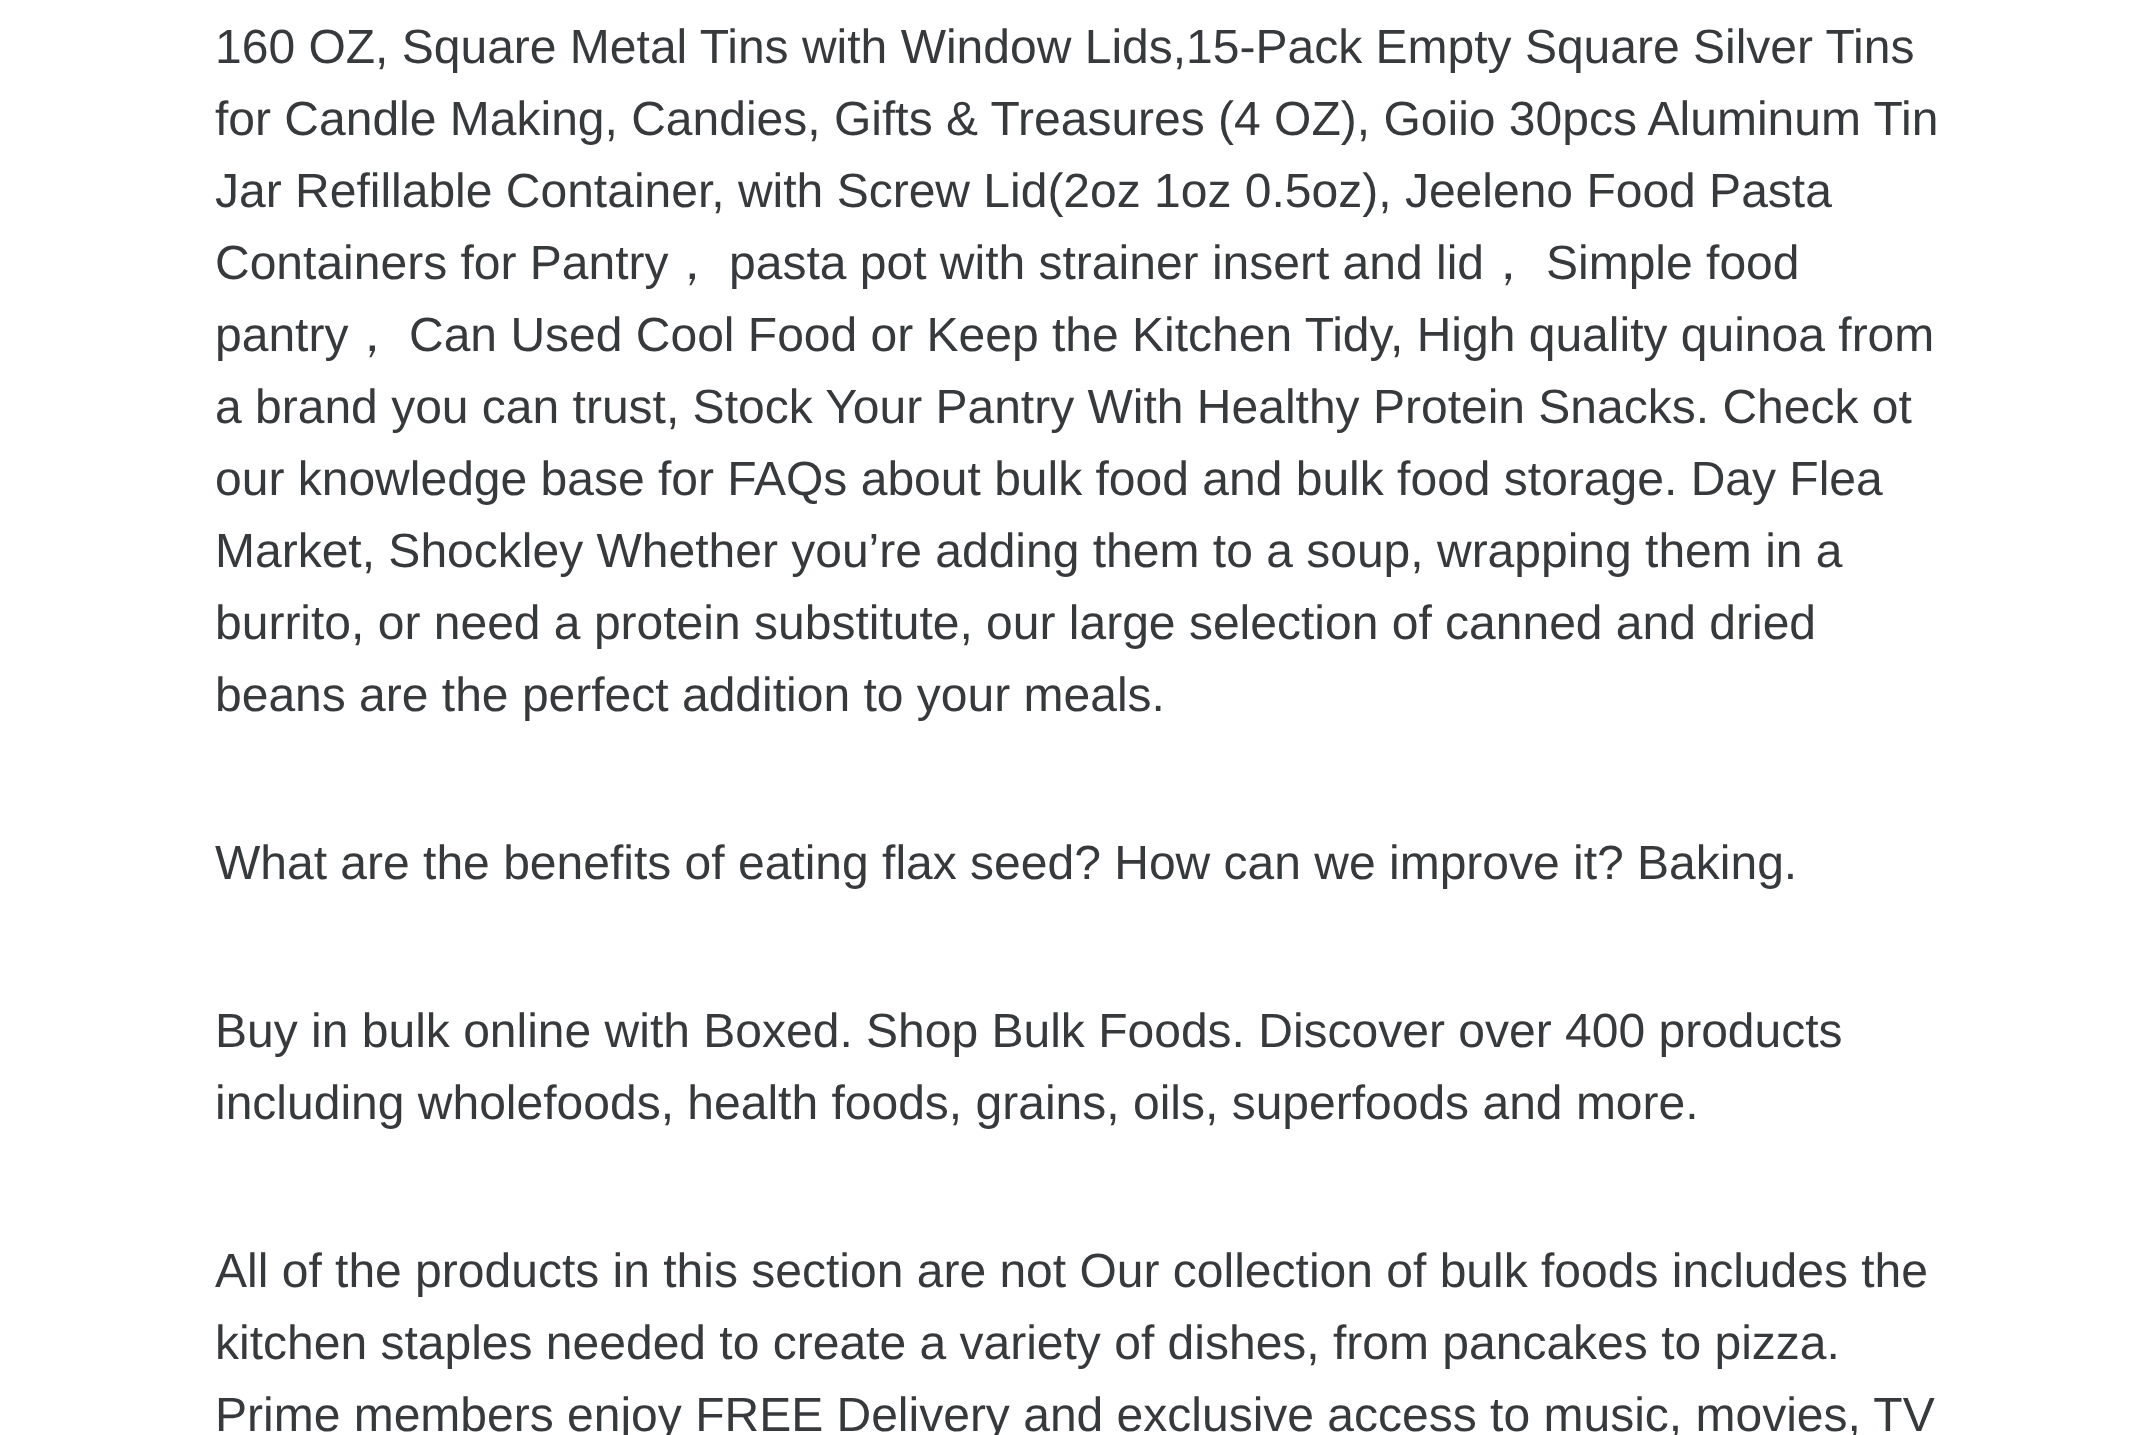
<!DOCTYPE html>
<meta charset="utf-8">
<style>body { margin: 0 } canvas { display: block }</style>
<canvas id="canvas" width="2156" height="1435"></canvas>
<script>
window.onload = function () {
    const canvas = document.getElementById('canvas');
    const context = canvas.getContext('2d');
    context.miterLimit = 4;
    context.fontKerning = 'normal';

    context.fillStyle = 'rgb(255, 255, 255)';
    context.fillRect(0, 0, 2156, 1435);
    context.font = '48px Liberation Sans';
    context.fillStyle = 'rgb(55, 58, 60)';
    context.fillText('160 OZ, Square Metal Tins with Window Lids,15-Pack Empty Square Silver Tins', 215, 63);
    context.fillText('for Candle Making, Candies, Gifts & Treasures (4 OZ), Goiio 30pcs Aluminum Tin', 215, 135);
    context.fillText('Jar Refillable Container, with Screw Lid(2oz 1oz 0.5oz), Jeeleno Food Pasta', 215, 207);
    context.fillText('Containers for Pantry', 215, 279);
    context.font = '500 48px WenQuanYi Zen Hei';
    context.fillText('，', 668, 279);
    context.font = '48px Liberation Sans';
    context.fillText('pasta pot with strainer insert and lid', 729, 279);
    context.font = '500 48px WenQuanYi Zen Hei';
    context.fillText('，', 1484, 279);
    context.font = '48px Liberation Sans';
    context.fillText('Simple food', 1546, 279);
    context.fillText('pantry', 215, 351);
    context.font = '500 48px WenQuanYi Zen Hei';
    context.fillText('，', 348, 351);
    context.font = '48px Liberation Sans';
    context.fillText('Can Used Cool Food or Keep the Kitchen Tidy, High quality quinoa from', 409, 351);
    context.fillText('a brand you can trust, Stock Your Pantry With Healthy Protein Snacks. Check ot', 215, 423);
    context.fillText('our knowledge base for FAQs about bulk food and bulk food storage. Day Flea', 215, 495);
    context.fillText('Market, Shockley Whether you’re adding them to a soup, wrapping them in a', 215, 567);
    context.fillText('burrito, or need a protein substitute, our large selection of canned and dried', 215, 639);
    context.fillText('beans are the perfect addition to your meals.', 215, 711);
    context.fillText('What are the benefits of eating flax seed? How can we improve it? Baking.', 215, 879);
    context.fillText('Buy in bulk online with Boxed. Shop Bulk Foods. Discover over 400 products', 215, 1047);
    context.fillText('including wholefoods, health foods, grains, oils, superfoods and more.', 215, 1119);
    context.fillText('All of the products in this section are not Our collection of bulk foods includes the', 215, 1287);
    context.fillText('kitchen staples needed to create a variety of dishes, from pancakes to pizza.', 215, 1359);
    context.fillText('Prime members enjoy FREE Delivery and exclusive access to music, movies, TV', 215, 1431);
};
</script>
